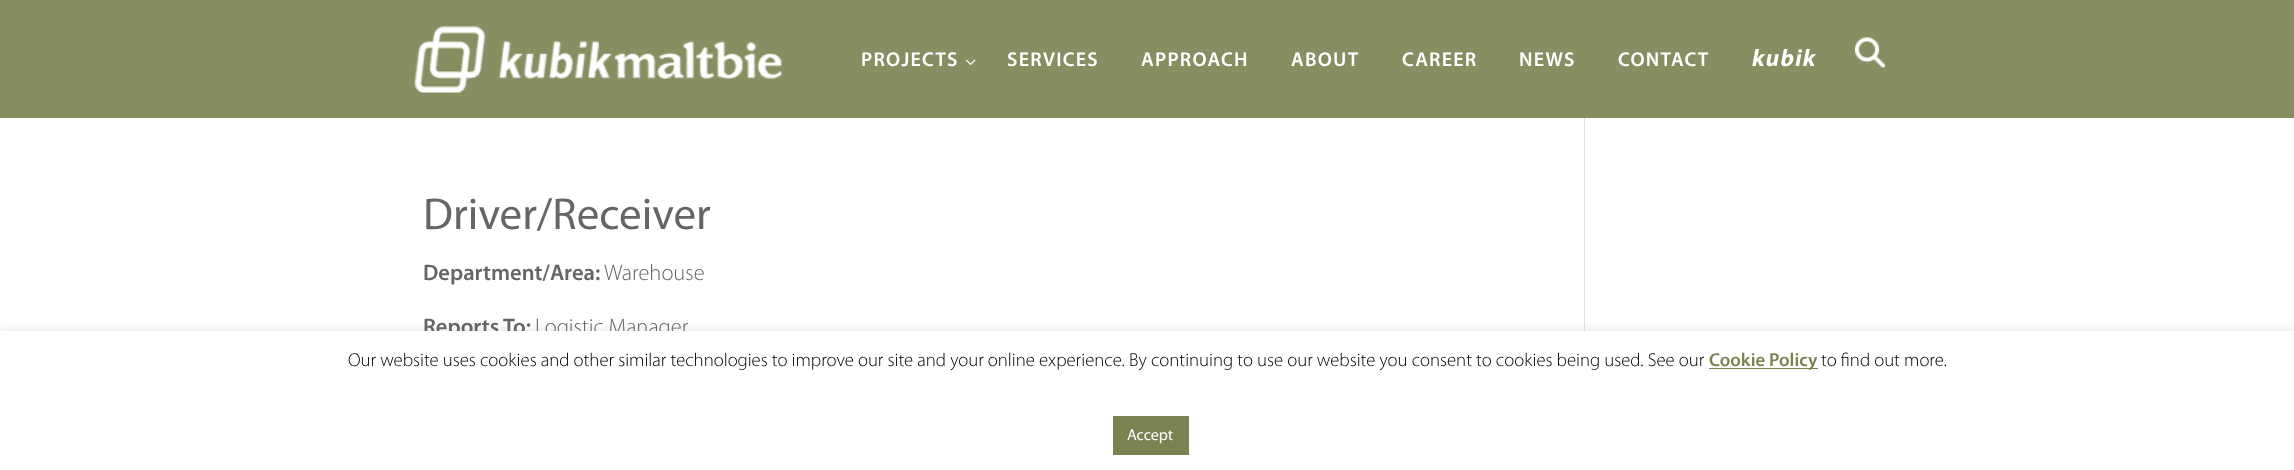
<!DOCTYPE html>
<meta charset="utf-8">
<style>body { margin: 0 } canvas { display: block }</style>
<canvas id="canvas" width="2294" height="470"></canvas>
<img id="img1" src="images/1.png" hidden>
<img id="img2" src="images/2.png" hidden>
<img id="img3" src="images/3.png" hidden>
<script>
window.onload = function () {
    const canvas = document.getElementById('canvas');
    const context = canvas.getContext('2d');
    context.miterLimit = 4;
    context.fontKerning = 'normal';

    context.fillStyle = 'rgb(255, 255, 255)';
    context.fillRect(0, 0, 2294, 470);
    context.fillStyle = 'rgb(134, 143, 98)';
    context.fillRect(0, 0, 2294, 118);
    context.drawImage(document.getElementById('img1'), 414, 26, 368, 67);
    context.drawImage(document.getElementById('img2'), 966, 59, 10, 6);
    context.drawImage(document.getElementById('img3'), 1855, 37, 30, 31);
    context.fillStyle = 'rgb(226, 226, 226)';
    context.fillRect(1584, 118, 1, 213);
    context.fillStyle = 'rgb(132, 140, 96)';
    context.fillRect(1584, 0, 1, 118);
    context.fillStyle = 'rgba(172, 171, 171, 0.3)';
    context.filter = 'blur(6px)';
    context.beginPath();
    context.rect(0, 330, 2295, 139);
    context.fill();
    context.filter = 'none';
    context.letterSpacing = '1.25px';
    context.font = '600 20px Myriad';
    context.fillStyle = 'rgb(255, 255, 255)';
    context.fillText('PROJECTS', 861, 66);
    context.fillText('SERVICES', 1007, 66);
    context.fillText('APPROACH', 1141, 66);
    context.fillText('ABOUT', 1291, 66);
    context.fillText('CAREER', 1402, 66);
    context.fillText('NEWS', 1519, 66);
    context.fillText('CONTACT', 1618, 66);
    context.font = 'italic bold 24px Myriad';
    context.fillText('kubik', 1752, 66);
    context.letterSpacing = '0px';
    context.font = '45px Myriad';
    context.fillStyle = 'rgb(101, 101, 101)';
    context.fillText('Driver/Receiver', 423, 229);
    context.font = '600 22.5px Myriad';
    context.fillText('Department/Area:', 423, 280);
    context.font = '300 22.5px Myriad';
    context.fillText('Warehouse', 604, 280);
    context.font = '600 22.5px Myriad';
    context.fillText('Reports To:', 423, 334);
    context.font = '300 22.5px Myriad';
    context.fillText('Logistic Manager', 535, 334);
    context.fillStyle = 'rgb(255, 255, 255)';
    context.fillRect(0, 331, 2294, 139);
    context.font = '300 18.75px Myriad';
    context.fillStyle = 'rgb(0, 0, 0)';
    context.fillText('Our website uses cookies and other similar technologies to improve our site and your online experience. By continuing to use our website you consent to cookies being used. See our', 348, 366);
    context.fillStyle = 'rgb(121, 130, 81)';
    context.fillRect(1709, 368, 109, 1);
    context.font = '600 18.75px Myriad';
    context.fillText('Cookie Policy', 1709, 366);
    context.font = '300 18.75px Myriad';
    context.fillStyle = 'rgb(0, 0, 0)';
    context.fillText('to find out more.', 1821, 366);
    context.fillStyle = 'rgb(121, 130, 81)';
    context.fillRect(1113, 416, 76, 39);
    context.font = '16px Myriad';
    context.fillStyle = 'rgb(255, 255, 255)';
    context.fillText('Accept', 1127, 440);
};
</script>
